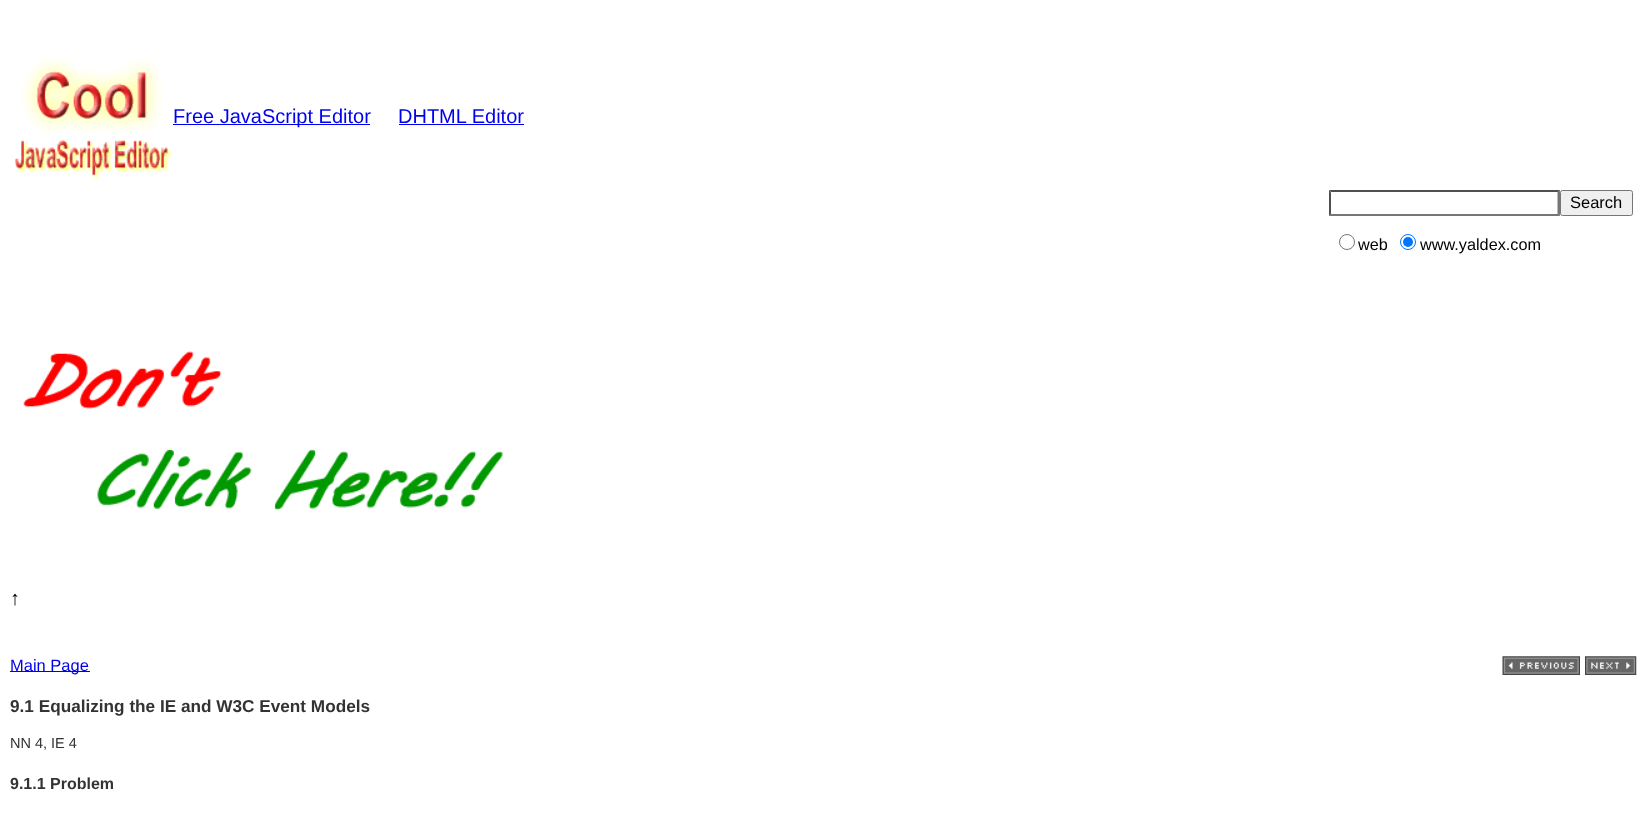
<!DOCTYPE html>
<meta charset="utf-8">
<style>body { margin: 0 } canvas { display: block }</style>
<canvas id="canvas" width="1646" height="819"></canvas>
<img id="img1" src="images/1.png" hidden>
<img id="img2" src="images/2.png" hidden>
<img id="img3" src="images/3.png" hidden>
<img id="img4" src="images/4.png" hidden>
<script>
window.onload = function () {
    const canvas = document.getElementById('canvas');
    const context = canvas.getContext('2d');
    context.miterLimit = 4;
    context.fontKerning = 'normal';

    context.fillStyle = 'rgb(255, 255, 255)';
    context.fillRect(0, 0, 1646, 819);
    context.drawImage(document.getElementById('img1'), 14, 58, 159, 122);
    context.fillStyle = 'rgb(0, 0, 238)';
    context.fillRect(173, 124, 197, 1);
    context.fillRect(399, 124, 125, 1);
    context.fillStyle = 'rgb(79, 79, 79)';
    context.beginPath();
    context.moveTo(1329, 190);
    context.lineTo(1560, 190);
    context.lineTo(1558, 192);
    context.lineTo(1331, 192);
    context.closePath();
    context.fill();
    context.fillStyle = 'rgb(118, 118, 118)';
    context.beginPath();
    context.moveTo(1560, 190);
    context.lineTo(1560, 216);
    context.lineTo(1557.5, 214);
    context.lineTo(1557.5, 192.5);
    context.closePath();
    context.fill();
    context.beginPath();
    context.moveTo(1560, 216);
    context.lineTo(1329, 216);
    context.lineTo(1331, 214);
    context.lineTo(1558, 214);
    context.closePath();
    context.fill();
    context.fillStyle = 'rgb(79, 79, 79)';
    context.beginPath();
    context.moveTo(1329, 216);
    context.lineTo(1329, 190);
    context.lineTo(1331, 192.5);
    context.lineTo(1331, 214);
    context.closePath();
    context.fill();
    context.fillStyle = 'rgb(239, 239, 239)';
    context.beginPath();
    context.roundRect(1560.5, 190.5, 72, 25, 2);
    context.fill();
    context.strokeStyle = 'rgb(118, 118, 118)';
    context.stroke();
    context.beginPath();
    context.arc(1347, 242, 7.5, 0, 2 * Math.PI);
    context.stroke();
    context.beginPath();
    context.arc(1408, 242, 7.5, 0, 2 * Math.PI);
    context.strokeStyle = 'rgb(0, 117, 255)';
    context.stroke();
    context.fillStyle = 'rgb(0, 117, 255)';
    context.beginPath();
    context.arc(1408, 242, 5, 0, 2 * Math.PI);
    context.fill();
    context.drawImage(document.getElementById('img2'), 23, 351, 480, 160);
    context.fillStyle = 'rgb(0, 0, 238)';
    context.fillRect(10, 671, 80, 1);
    context.drawImage(document.getElementById('img3'), 1502, 656, 78, 19);
    context.drawImage(document.getElementById('img4'), 1585, 656, 52, 19);
    context.font = '20px Liberation Sans';
    context.fillText('Free JavaScript Editor', 173, 123);
    context.fillText('DHTML Editor', 398, 123);
    context.font = '16.5px Liberation Sans';
    context.fillStyle = 'rgb(0, 0, 0)';
    context.fillText('Search', 1570, 208);
    context.font = '16.25px Liberation Sans';
    context.fillText('web', 1358, 250);
    context.fillText('www.yaldex.com', 1420, 250);
    context.font = '20px Liberation Sans';
    context.fillText('↑', 10, 605);
    context.font = '16.5px Liberation Sans';
    context.fillStyle = 'rgb(0, 0, 238)';
    context.fillText('Main Page', 10, 671);
    context.font = 'bold 17.2px Liberation Sans';
    context.fillStyle = 'rgb(51, 51, 51)';
    context.fillText('9.1 Equalizing the IE and W3C Event Models', 10, 712);
    context.font = '14.5px Liberation Sans';
    context.fillText('NN 4, IE 4', 10, 748);
    context.font = 'bold 16px Liberation Sans';
    context.fillText('9.1.1 Problem', 10, 789);
};
</script>
